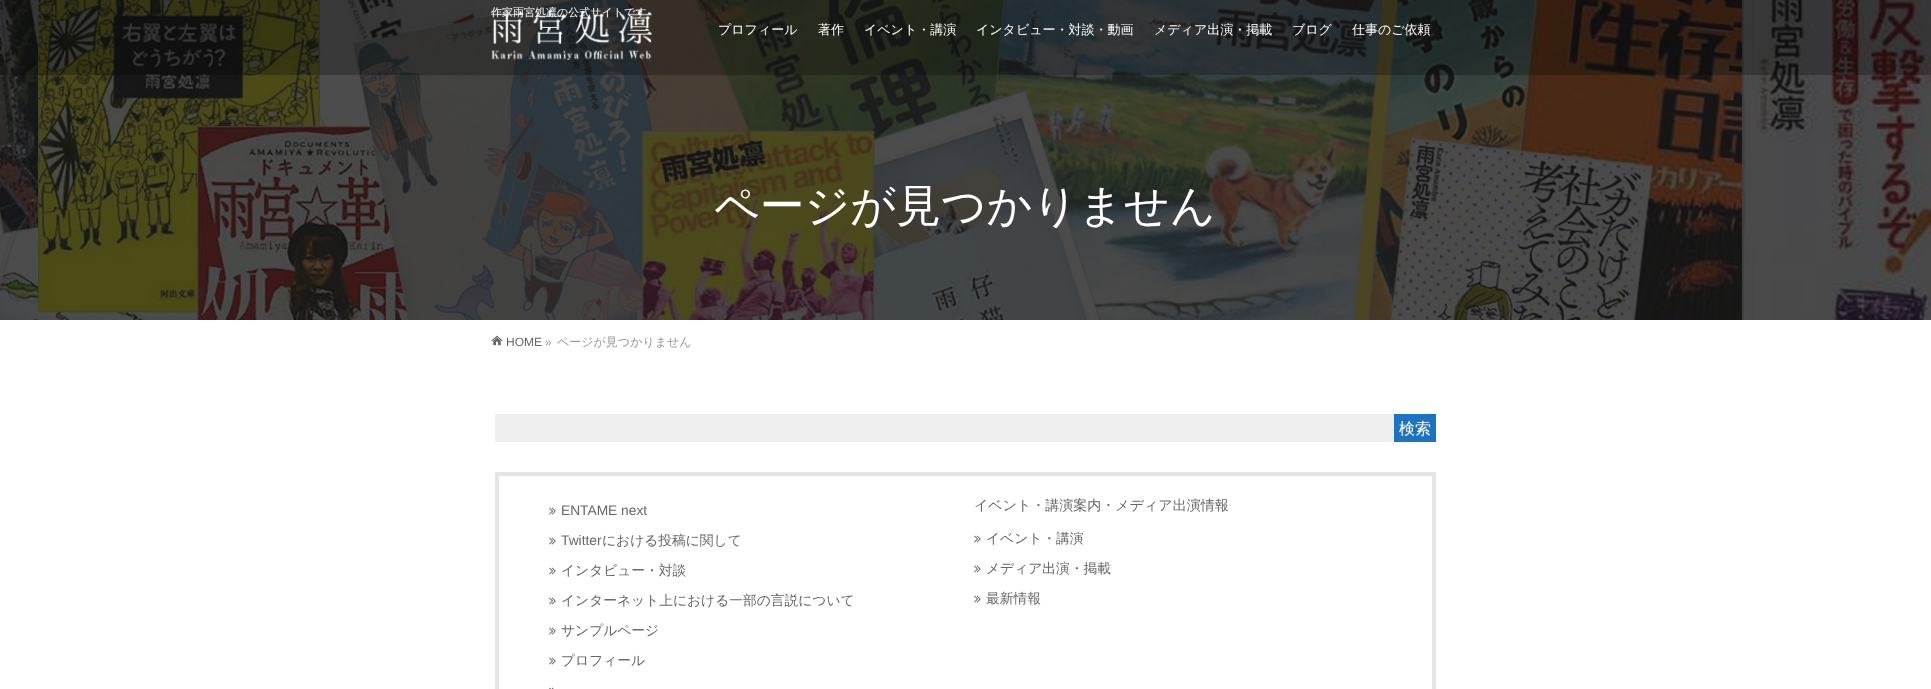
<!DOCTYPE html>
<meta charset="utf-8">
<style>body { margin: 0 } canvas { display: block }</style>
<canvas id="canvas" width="1931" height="689"></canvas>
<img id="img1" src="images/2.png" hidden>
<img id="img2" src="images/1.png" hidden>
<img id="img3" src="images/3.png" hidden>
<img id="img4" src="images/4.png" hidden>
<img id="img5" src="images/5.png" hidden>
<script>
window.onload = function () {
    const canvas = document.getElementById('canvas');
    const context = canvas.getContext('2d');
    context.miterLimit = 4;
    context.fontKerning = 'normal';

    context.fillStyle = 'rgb(255, 255, 255)';
    context.fillRect(0, 0, 1931, 689);
    context.drawImage(document.getElementById('img1'), 0, 0, 1931, 320);
    context.fillStyle = 'rgba(0, 0, 0, 0.25)';
    context.fillRect(0, 0, 1931, 75);
    context.drawImage(document.getElementById('img2'), 491, 10, 161, 50);
    context.drawImage(document.getElementById('img3'), 491, 335, 12, 11);
    context.fillStyle = 'rgb(239, 239, 239)';
    context.fillRect(495, 414, 899, 28);
    context.fillStyle = 'rgb(30, 115, 190)';
    context.fillRect(1394, 414, 42, 28);
    context.strokeStyle = 'rgb(229, 229, 229)';
    context.lineWidth = 4;
    context.strokeRect(497, 474, 937, 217);
    context.drawImage(document.getElementById('img4'), 549, 507, 7, 8);
    context.drawImage(document.getElementById('img4'), 549, 537, 7, 8);
    context.drawImage(document.getElementById('img4'), 549, 567, 7, 8);
    context.drawImage(document.getElementById('img4'), 549, 597, 7, 8);
    context.drawImage(document.getElementById('img4'), 549, 627, 7, 8);
    context.drawImage(document.getElementById('img4'), 549, 657, 7, 8);
    context.drawImage(document.getElementById('img5'), 549, 687, 5, 2);
    context.drawImage(document.getElementById('img4'), 974, 535, 7, 8);
    context.drawImage(document.getElementById('img4'), 974, 565, 7, 8);
    context.drawImage(document.getElementById('img4'), 974, 595, 7, 8);
    context.font = '500 11px WenQuanYi Zen Hei';
    context.fillStyle = 'rgb(255, 255, 255)';
    context.fillText('作家雨宮処凛の公式サイトです', 491, 16);
    context.font = '500 13px WenQuanYi Zen Hei';
    context.fillText('プロフィール', 718, 34);
    context.fillText('著作', 818, 34);
    context.fillText('イベント・講演', 864, 34);
    context.fillText('インタビュー・対談・動画', 976, 34);
    context.fillText('メディア出演・掲載', 1154, 34);
    context.fillText('ブログ', 1292, 34);
    context.fillText('仕事のご依頼', 1352, 34);
    context.font = '500 44.75px WenQuanYi Zen Hei';
    context.fillText('ページが見つかりません', 714, 221);
    context.font = '12px Liberation Sans';
    context.fillStyle = 'rgb(102, 102, 102)';
    context.fillText('HOME', 506, 346);
    context.fillStyle = 'rgb(153, 153, 153)';
    context.fillText('»', 545, 346);
    context.font = '500 12px WenQuanYi Zen Hei';
    context.fillText('ページが見つかりません', 557, 346);
    context.font = '500 16px WenQuanYi Zen Hei';
    context.fillStyle = 'rgb(255, 255, 255)';
    context.fillText('検索', 1399, 434);
    context.font = '13.75px Liberation Sans';
    context.fillStyle = 'rgb(102, 102, 102)';
    context.fillText('ENTAME next', 561, 515);
    context.fillText('Twitter', 561, 545);
    context.font = '500 13.75px WenQuanYi Zen Hei';
    context.fillText('における投稿に関して', 602, 545);
    context.fillText('インタビュー・対談', 561, 575);
    context.fillText('インターネット上における一部の言説について', 561, 605);
    context.fillText('サンプルページ', 561, 635);
    context.fillText('プロフィール', 561, 665);
    context.font = '500 14px WenQuanYi Zen Hei';
    context.fillText('イベント・講演案内・メディア出演情報', 974, 510);
    context.font = '500 13.75px WenQuanYi Zen Hei';
    context.fillText('イベント・講演', 986, 543);
    context.fillText('メディア出演・掲載', 986, 573);
    context.fillText('最新情報', 986, 603);
};
</script>
